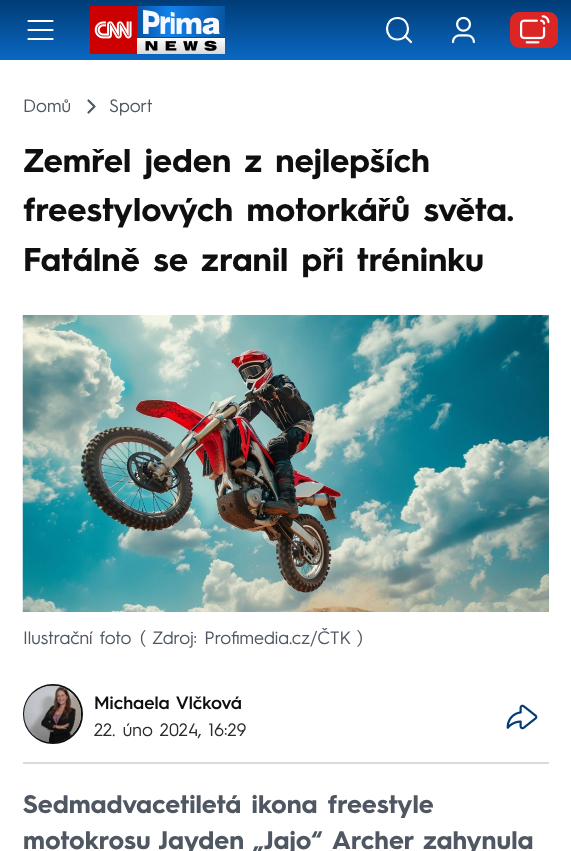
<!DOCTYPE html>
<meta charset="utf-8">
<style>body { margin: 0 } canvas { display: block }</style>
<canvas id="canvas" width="571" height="851"></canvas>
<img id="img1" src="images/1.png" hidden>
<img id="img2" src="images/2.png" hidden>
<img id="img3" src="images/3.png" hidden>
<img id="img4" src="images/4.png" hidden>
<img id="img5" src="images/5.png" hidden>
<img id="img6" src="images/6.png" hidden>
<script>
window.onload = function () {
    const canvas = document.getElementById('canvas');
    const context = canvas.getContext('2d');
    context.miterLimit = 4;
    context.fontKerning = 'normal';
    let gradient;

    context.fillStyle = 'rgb(255, 255, 255)';
    context.fillRect(0, 0, 571, 851);
    gradient = context.createLinearGradient(286, 0, 286, 60);
    gradient.addColorStop(0, 'rgb(0, 60, 118)');
    gradient.addColorStop(1, 'rgb(11, 104, 195)');
    context.fillStyle = gradient;
    context.fillRect(0, 0, 571, 60);
    context.beginPath();
    context.moveTo(28.5, 39);
    context.lineTo(52.5, 39);
    context.moveTo(28.5, 30);
    context.lineTo(52.5, 30);
    context.moveTo(28.5, 21);
    context.lineTo(52.5, 21);
    context.strokeStyle = 'rgb(255, 255, 255)';
    context.lineWidth = 2.2;
    context.lineCap = 'round';
    context.lineJoin = 'round';
    context.stroke();
    context.drawImage(document.getElementById('img1'), 90, 6, 135, 48);
    context.beginPath();
    context.moveTo(397.5, 39.5);
    context.bezierCurveTo(411.5, 39.5, 411.5, 18, 397.5, 18);
    context.bezierCurveTo(383.5, 18, 383.5, 39.5, 397.5, 39.5);
    context.closePath();
    context.moveTo(411, 42);
    context.lineTo(405, 36);
    context.stroke();
    context.drawImage(document.getElementById('img2'), 451, 16, 24, 28);
    context.fillStyle = 'rgb(220, 38, 38)';
    context.beginPath();
    context.roundRect(510, 12, 48, 36, 9);
    context.fill();
    context.drawImage(document.getElementById('img3'), 520, 15, 30, 29);
    context.beginPath();
    context.moveTo(88.5, 112.5);
    context.lineTo(94.5, 106.5);
    context.lineTo(88.5, 100.5);
    context.strokeStyle = 'rgb(79, 88, 98)';
    context.stroke();
    context.drawImage(document.getElementById('img4'), 22, 315, 527, 297);
    context.beginPath();
    context.arc(53, 714, 29, 0, 2 * Math.PI);
    context.strokeStyle = 'rgb(15, 15, 16)';
    context.lineWidth = 2;
    context.stroke();
    context.drawImage(document.getElementById('img5'), 24, 685, 57, 58);
    context.drawImage(document.getElementById('img6'), 506, 704, 32, 26);
    context.fillStyle = 'rgb(218, 218, 218)';
    context.fillRect(23, 762, 526, 2);
    context.font = '18px "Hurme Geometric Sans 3"';
    context.fillStyle = 'rgb(79, 88, 98)';
    context.fillText('Domů', 23, 112);
    context.fillText('Sport', 109, 112);
    context.font = 'bold 33px "Hurme Geometric Sans 3"';
    context.fillStyle = 'rgb(15, 15, 16)';
    context.fillText('Zemřel jeden z nejlepších', 23, 172);
    context.fillText('freestylových motorkářů světa.', 23, 221);
    context.fillText('Fatálně se zranil při tréninku', 23, 271);
    context.font = '18px "Hurme Geometric Sans 3"';
    context.fillStyle = 'rgb(79, 88, 98)';
    context.fillText('Ilustrační foto', 23, 644);
    context.fillText('(', 140, 644);
    context.fillText('Zdroj: Profimedia.cz/ČTK )', 152, 644);
    context.font = '600 18px "Hurme Geometric Sans 3"';
    context.fillStyle = 'rgb(15, 15, 16)';
    context.fillText('Michaela Vlčková', 94, 709);
    context.font = '18px "Hurme Geometric Sans 3"';
    context.fillStyle = 'rgb(43, 43, 43)';
    context.fillText('22. úno 2024, 16:29', 94, 736);
    context.font = 'bold 25.5px "Hurme Geometric Sans 3"';
    context.fillStyle = 'rgb(79, 88, 98)';
    context.fillText('Sedmadvacetiletá ikona freestyle', 23, 813);
    context.wordSpacing = '-1px';
    context.fillText('motokrosu Jayden „Jajo“', 23, 849);
    context.wordSpacing = '0px';
    context.fillText('Archer zahynula', 332, 849);
};
</script>
